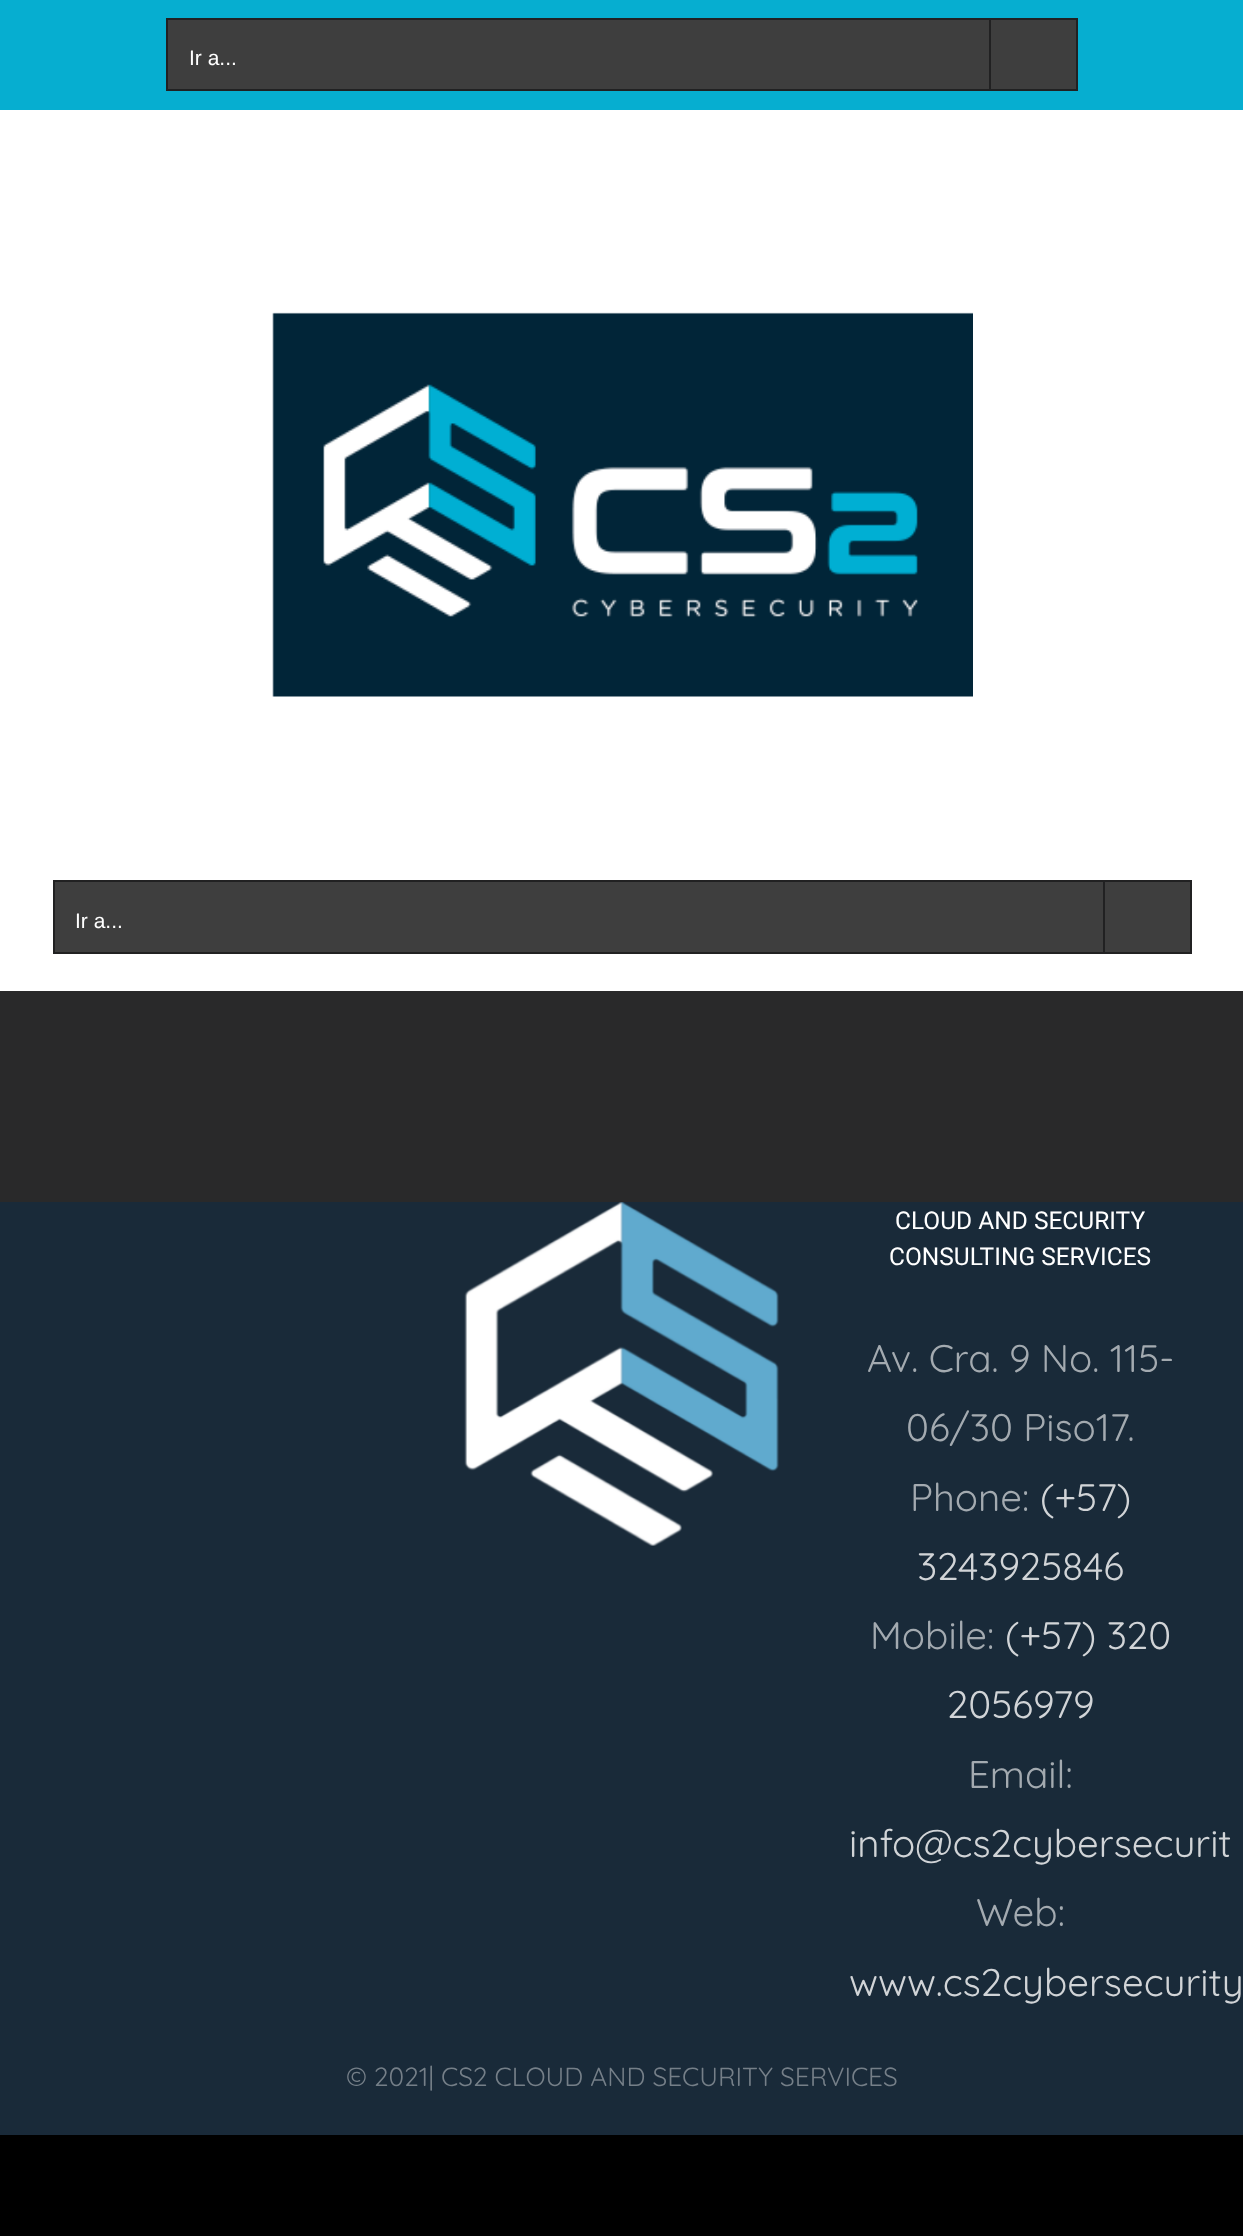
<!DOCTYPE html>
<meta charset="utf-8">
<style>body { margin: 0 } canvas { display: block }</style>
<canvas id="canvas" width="1243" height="2236"></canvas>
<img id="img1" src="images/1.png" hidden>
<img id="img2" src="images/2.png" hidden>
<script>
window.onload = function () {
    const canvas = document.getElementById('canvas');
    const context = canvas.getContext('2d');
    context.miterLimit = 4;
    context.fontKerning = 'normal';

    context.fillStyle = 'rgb(0, 0, 0)';
    context.fillRect(0, 0, 1243, 2236);
    context.fillStyle = 'rgb(41, 41, 42)';
    context.fillRect(0, 991, 1243, 211);
    context.fillStyle = 'rgb(6, 174, 208)';
    context.fillRect(0, 0, 1243, 110);
    context.fillStyle = 'rgb(62, 62, 62)';
    context.beginPath();
    context.rect(167, 19, 910, 71);
    context.fill();
    context.strokeStyle = 'rgb(33, 33, 34)';
    context.lineWidth = 2;
    context.stroke();
    context.fillStyle = 'rgb(33, 33, 34)';
    context.fillRect(989, 19, 2, 70);
    context.fillStyle = 'rgb(255, 255, 255)';
    context.fillRect(0, 110, 1243, 881);
    context.drawImage(document.getElementById('img1'), 272, 312, 701, 385);
    context.fillStyle = 'rgb(62, 62, 62)';
    context.beginPath();
    context.rect(54, 881, 1137, 72);
    context.fill();
    context.stroke();
    context.fillStyle = 'rgb(33, 33, 34)';
    context.fillRect(1103, 882, 2, 70);
    context.fillStyle = 'rgb(25, 42, 57)';
    context.fillRect(0, 1202, 1243, 933);
    context.drawImage(document.getElementById('img2'), 464, 1202, 315, 344);
    context.font = '21px Liberation Sans';
    context.fillStyle = 'rgb(255, 255, 255)';
    context.fillText('Ir a...', 189, 65);
    context.fillText('Ir a...', 75, 928);
    context.font = '24.5px Roboto';
    context.fillText('CLOUD AND SECURITY', 895, 1229);
    context.fillText('CONSULTING SERVICES', 889, 1265);
    context.font = '38.5px Quicksand';
    context.fillStyle = 'rgb(163, 170, 176)';
    context.fillText('Av. Cra. 9 No. 115-', 867, 1372);
    context.fillText('06/30 Piso17.', 906, 1441);
    context.fillText('Phone:', 910, 1511);
    context.fillStyle = 'rgb(209, 212, 215)';
    context.fillText('(+57)', 1040, 1511);
    context.fillText('3243925846', 917, 1580);
    context.fillStyle = 'rgb(163, 170, 176)';
    context.fillText('Mobile:', 870, 1649);
    context.fillStyle = 'rgb(209, 212, 215)';
    context.fillText('(+57) 320', 1005, 1649);
    context.fillText('2056979', 947, 1718);
    context.fillStyle = 'rgb(163, 170, 176)';
    context.fillText('Email:', 968, 1788);
    context.fillStyle = 'rgb(209, 212, 215)';
    context.fillText('info@cs2cybersecurit', 849, 1857);
    context.fillStyle = 'rgb(163, 170, 176)';
    context.fillText('Web:', 976, 1926);
    context.fillStyle = 'rgb(209, 212, 215)';
    context.fillText('www.cs2cybersecurity', 849, 1996);
    context.font = '26.25px Quicksand';
    context.fillStyle = 'rgb(117, 127, 136)';
    context.fillText('© 2021| CS2 CLOUD AND SECURITY SERVICES', 346, 2086);
};
</script>
